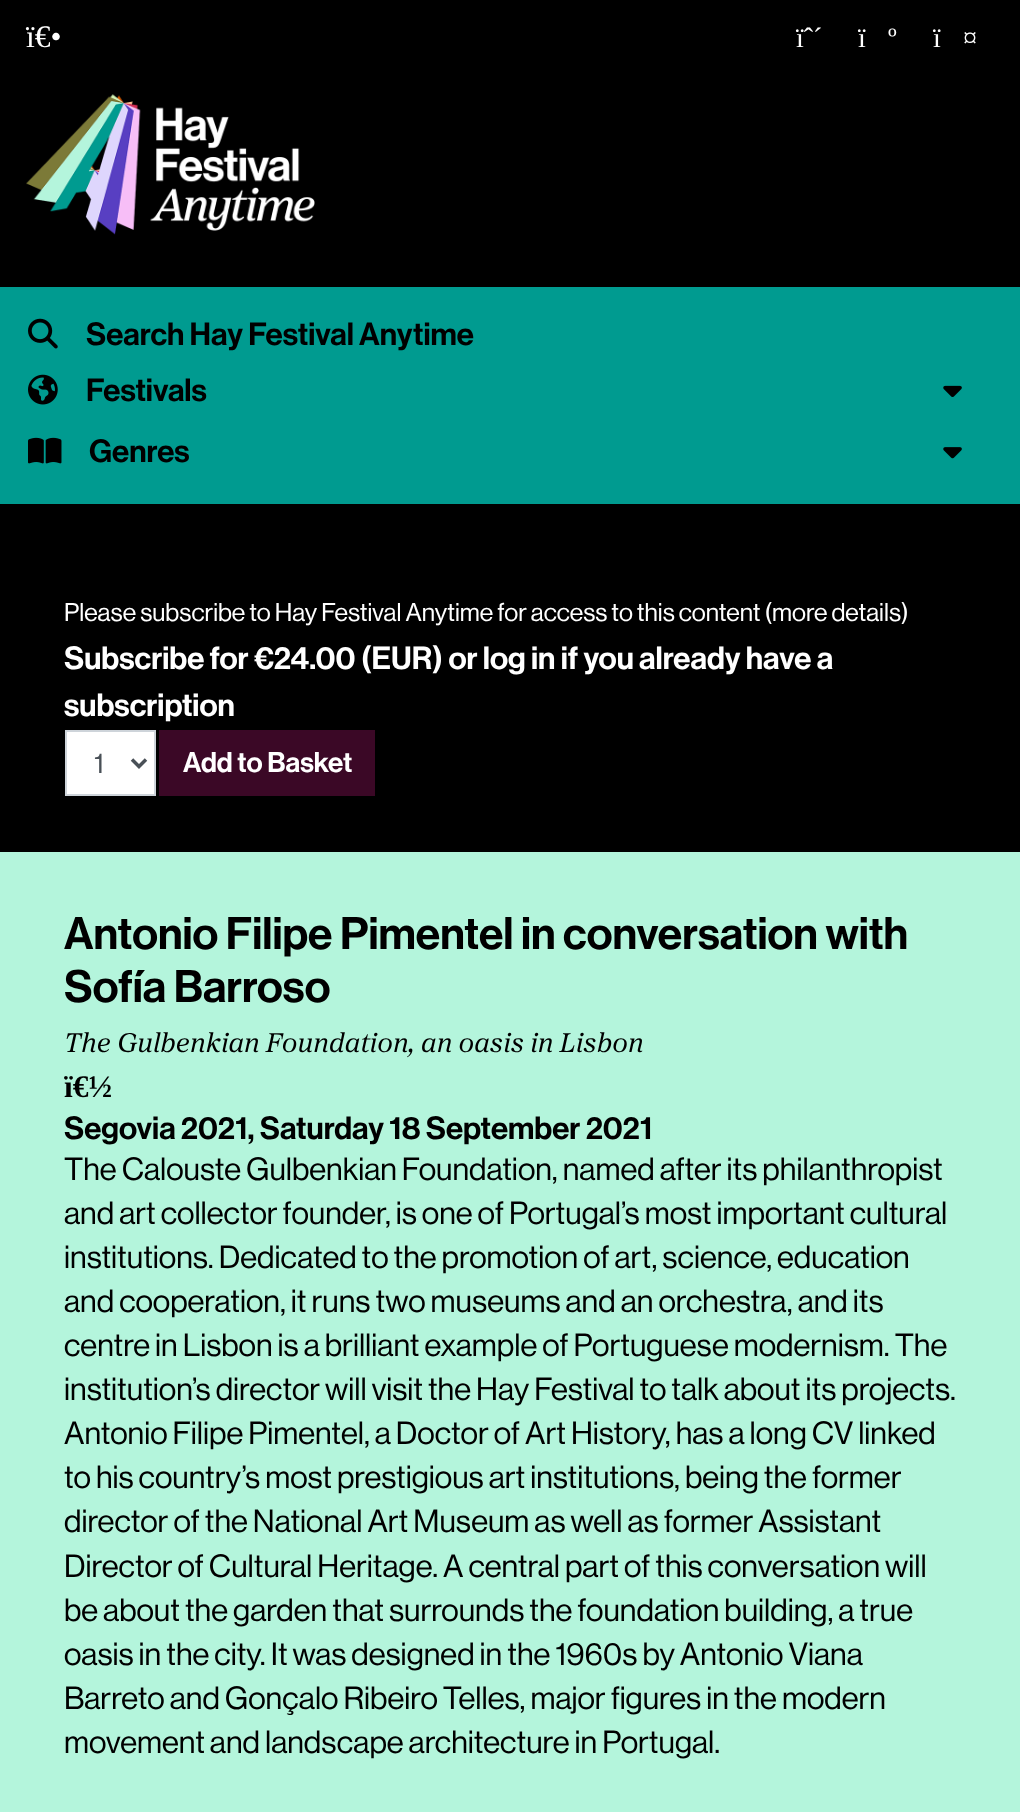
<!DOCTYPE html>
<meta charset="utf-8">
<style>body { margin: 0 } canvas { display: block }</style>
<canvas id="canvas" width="1020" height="1812"></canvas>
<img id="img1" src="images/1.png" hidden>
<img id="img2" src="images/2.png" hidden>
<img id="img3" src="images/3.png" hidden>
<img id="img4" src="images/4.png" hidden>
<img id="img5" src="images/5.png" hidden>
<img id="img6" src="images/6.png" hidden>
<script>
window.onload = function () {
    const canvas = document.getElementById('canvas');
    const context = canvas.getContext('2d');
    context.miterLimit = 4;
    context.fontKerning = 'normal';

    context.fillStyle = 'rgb(0, 0, 0)';
    context.fillRect(0, 0, 1020, 1812);
    context.drawImage(document.getElementById('img1'), 26, 94, 289, 141);
    context.fillStyle = 'rgb(0, 155, 144)';
    context.fillRect(0, 287, 1020, 217);
    context.drawImage(document.getElementById('img2'), 28, 318, 30, 31);
    context.drawImage(document.getElementById('img3'), 28, 374, 30, 31);
    context.drawImage(document.getElementById('img4'), 943, 385, 19, 12);
    context.drawImage(document.getElementById('img5'), 28, 437, 34, 27);
    context.drawImage(document.getElementById('img6'), 943, 447, 19, 12);
    context.fillStyle = 'rgb(255, 255, 255)';
    context.beginPath();
    context.rect(66, 731, 89, 64);
    context.fill();
    context.strokeStyle = 'rgb(206, 212, 218)';
    context.lineWidth = 2;
    context.stroke();
    context.beginPath();
    context.moveTo(132, 759.5);
    context.lineTo(139, 766.5);
    context.lineTo(146, 759.5);
    context.strokeStyle = 'rgb(73, 80, 87)';
    context.lineWidth = 3.5;
    context.stroke();
    context.fillStyle = 'rgb(59, 8, 38)';
    context.fillRect(159, 730, 216, 66);
    context.fillStyle = 'rgb(180, 245, 220)';
    context.fillRect(0, 852, 1020, 960);
    context.font = '31.5px Liberation Serif';
    context.fillStyle = 'rgb(255, 255, 255)';
    context.fillText('ï€•', 26, 47);
    context.font = '28px Liberation Serif';
    context.fillText('ïˆ´', 796, 47);
    context.fillText('ï', 858, 47);
    context.fillText('º', 888, 47);
    context.fillText('ï', 933, 47);
    context.fillText('¤', 963, 47);
    context.font = '500 31.5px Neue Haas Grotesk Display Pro';
    context.fillStyle = 'rgb(0, 0, 0)';
    context.fillText('Search Hay Festival Anytime', 86, 345);
    context.fillText('Festivals', 86, 401);
    context.fillText('Genres', 89, 462);
    context.font = '500 25.2px "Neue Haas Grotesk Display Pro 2"';
    context.fillStyle = 'rgb(255, 255, 255)';
    context.fillText('Please subscribe to Hay Festival Anytime for access to this content (', 64, 621);
    context.fillText('more details)', 772, 621);
    context.font = '500 31.5px Neue Haas Grotesk Display Pro';
    context.fillText('Subscribe for €24.00 (EUR) or log in if you already have a', 64, 669);
    context.fillText('subscription', 64, 716);
    context.font = '500 28px "Neue Haas Grotesk Display Pro 2"';
    context.fillStyle = 'rgb(73, 80, 87)';
    context.fillText('1', 94, 773);
    context.font = '500 28px Neue Haas Grotesk Display Pro';
    context.fillStyle = 'rgb(255, 255, 255)';
    context.fillText('Add to Basket', 183, 772);
    context.font = '500 44.75px Neue Haas Grotesk Display Pro';
    context.fillStyle = 'rgb(0, 0, 0)';
    context.fillText('Antonio Filipe Pimentel in conversation with', 64, 949);
    context.fillText('Sofía Barroso', 64, 1002);
    context.font = 'italic 28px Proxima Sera';
    context.fillText('The Gulbenkian Foundation, an oasis in Lisbon', 64, 1052);
    context.font = 'bold 31.5px Liberation Serif';
    context.fillText('ï€½', 64, 1097);
    context.font = '500 31.5px Neue Haas Grotesk Display Pro';
    context.fillText('Segovia 2021, Saturday 18 September 2021', 64, 1139);
    context.font = '500 31.5px "Neue Haas Grotesk Display Pro 2"';
    context.fillText('The Calouste Gulbenkian Foundation, named after its philanthropist', 64, 1180);
    context.fillText('and art collector founder, is one of Portugal’s most important cultural', 64, 1224);
    context.fillText('institutions. Dedicated to the promotion of art, science, education', 64, 1268);
    context.fillText('and cooperation, it runs two museums and an orchestra, and its', 64, 1312);
    context.fillText('centre in Lisbon is a brilliant example of Portuguese modernism. The', 64, 1356);
    context.fillText('institution’s director will visit the Hay Festival to talk about its projects.', 64, 1400);
    context.fillText('Antonio Filipe Pimentel, a Doctor of Art History, has a long CV linked', 64, 1444);
    context.fillText('to his country’s most prestigious art institutions, being the former', 64, 1488);
    context.fillText('director of the National Art Museum as well as former Assistant', 64, 1532);
    context.fillText('Director of Cultural Heritage. A central part of this conversation will', 64, 1577);
    context.fillText('be about the garden that surrounds the foundation building, a true', 64, 1621);
    context.fillText('oasis in the city. It was designed in the 1960s by Antonio Viana', 64, 1665);
    context.fillText('Barreto and Gonçalo Ribeiro Telles, major figures in the modern', 64, 1709);
    context.fillText('movement and landscape architecture in Portugal.', 64, 1753);
};
</script>
